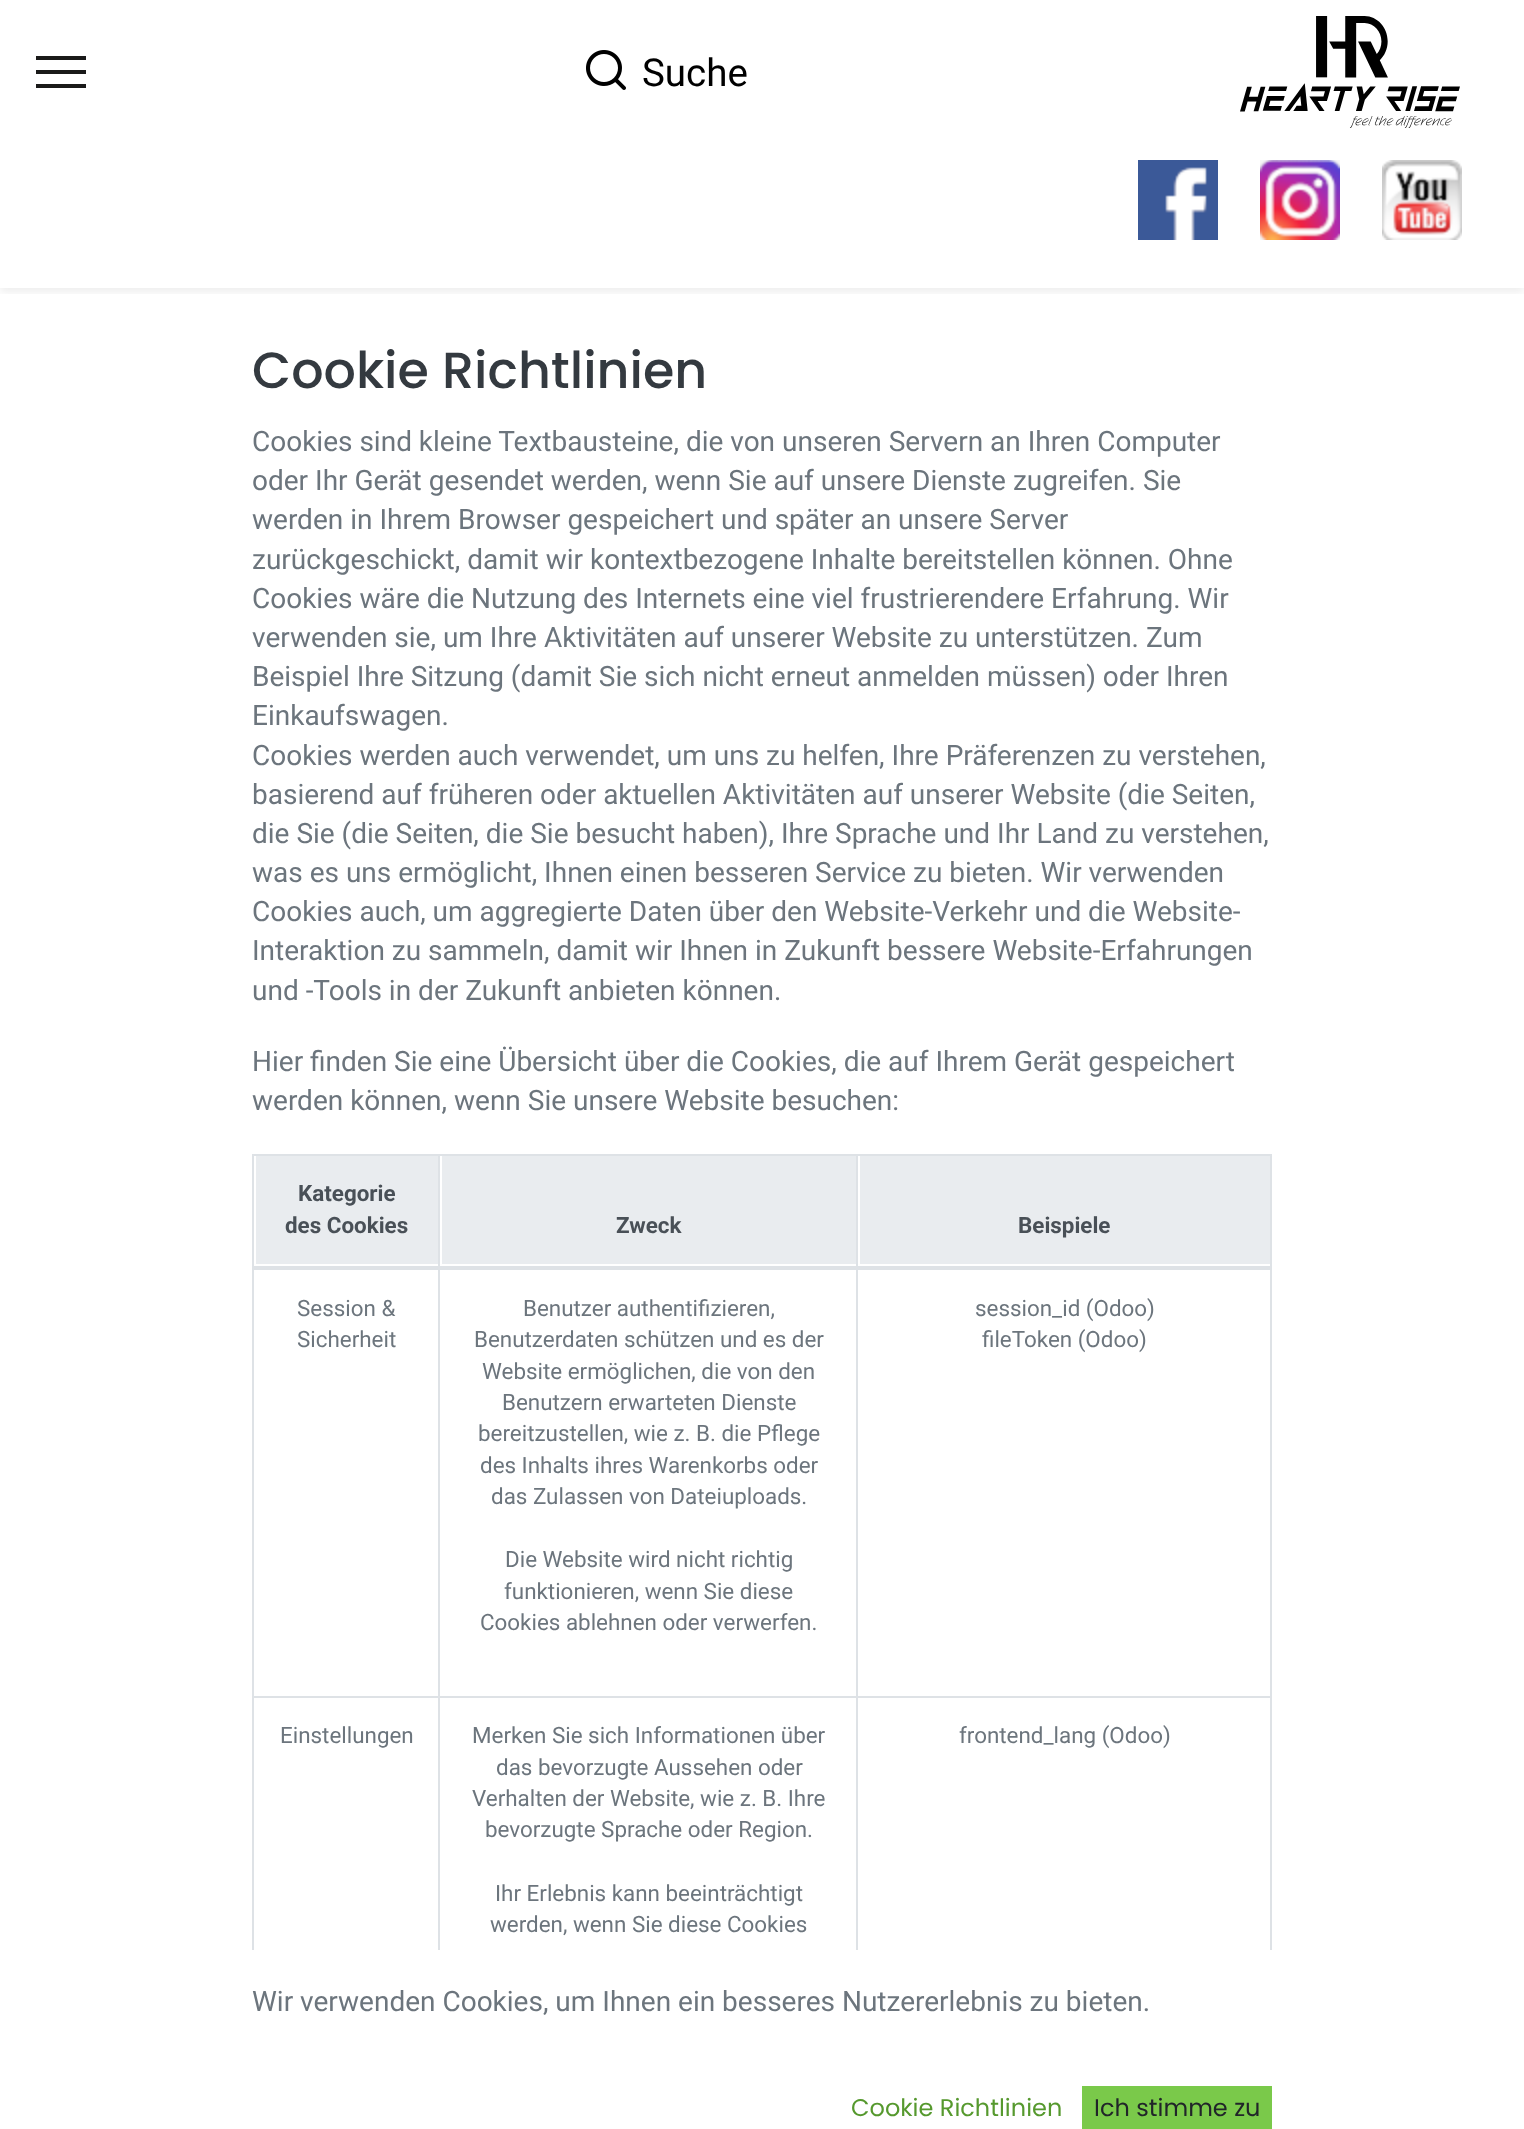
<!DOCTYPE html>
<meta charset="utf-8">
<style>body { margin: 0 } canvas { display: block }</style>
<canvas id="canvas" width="1524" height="2129"></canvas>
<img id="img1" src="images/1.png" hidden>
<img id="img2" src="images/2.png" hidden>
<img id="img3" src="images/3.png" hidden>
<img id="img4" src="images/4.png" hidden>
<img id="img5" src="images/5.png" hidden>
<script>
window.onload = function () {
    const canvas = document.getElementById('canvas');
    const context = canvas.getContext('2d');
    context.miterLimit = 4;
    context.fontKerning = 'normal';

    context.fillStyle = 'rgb(255, 255, 255)';
    context.fillRect(0, 0, 1524, 2129);
    context.save();
    context.beginPath();
    context.rect(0, 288, 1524, 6);
    context.clip();
    context.fillStyle = 'rgba(0, 0, 0, 0.07)';
    context.filter = 'blur(4px)';
    context.beginPath();
    context.rect(0, 4, 1524, 288);
    context.fill();
    context.filter = 'none';
    context.restore();
    context.fillStyle = 'rgb(26, 26, 25)';
    context.fillRect(36, 56, 50, 4);
    context.fillRect(36, 70, 50, 4);
    context.fillRect(36, 84, 50, 4);
    context.drawImage(document.getElementById('img1'), 586, 50, 40, 40);
    context.drawImage(document.getElementById('img2'), 1240, 16, 220, 112);
    context.drawImage(document.getElementById('img3'), 1138, 160, 80, 80);
    context.drawImage(document.getElementById('img4'), 1260, 160, 80, 80);
    context.drawImage(document.getElementById('img5'), 1382, 160, 80, 80);
    context.fillStyle = 'rgb(233, 236, 239)';
    context.fillRect(256, 1156, 182, 108);
    context.fillStyle = 'rgb(222, 226, 230)';
    context.fillRect(856, 1154, 416, 2);
    context.fillRect(856, 1696, 416, 2);
    context.fillRect(856, 1696, 2, 254);
    context.fillRect(438, 1696, 420, 2);
    context.fillRect(856, 1266, 2, 432);
    context.fillRect(856, 1154, 2, 114);
    context.fillRect(438, 1154, 420, 2);
    context.fillRect(438, 1696, 2, 254);
    context.fillRect(252, 1696, 188, 2);
    context.fillRect(438, 1266, 2, 432);
    context.fillRect(438, 1154, 2, 114);
    context.fillRect(252, 1154, 188, 2);
    context.fillRect(252, 1266, 2, 684);
    context.fillRect(252, 1154, 2, 114);
    context.fillStyle = 'rgb(233, 236, 239)';
    context.fillRect(442, 1156, 414, 108);
    context.fillRect(860, 1156, 410, 108);
    context.fillStyle = 'rgb(222, 226, 230)';
    context.fillRect(1270, 1266, 2, 684);
    context.fillRect(1270, 1154, 2, 114);
    context.fillRect(252, 1266, 1020, 4);
    context.fillStyle = 'rgb(122, 201, 74)';
    context.fillRect(1082, 2086, 190, 43);
    context.font = '38.5px Roboto';
    context.fillStyle = 'rgb(0, 0, 0)';
    context.fillText('Suche', 642, 86);
    context.font = '500 50.75px Poppins';
    context.fillStyle = 'rgb(52, 58, 64)';
    context.fillText('Cookie Richtlinien', 252, 388);
    context.font = '28px Roboto';
    context.fillStyle = 'rgb(108, 117, 125)';
    context.fillText('Cookies sind kleine Textbausteine, die von unseren Servern an Ihren Computer', 252, 451);
    context.fillText('oder Ihr Gerät gesendet werden, wenn Sie auf unsere Dienste zugreifen. Sie', 252, 490);
    context.fillText('werden in Ihrem Browser gespeichert und später an unsere Server', 252, 529);
    context.fillText('zurückgeschickt, damit wir kontextbezogene Inhalte bereitstellen können. Ohne', 252, 569);
    context.fillText('Cookies wäre die Nutzung des Internets eine viel frustrierendere Erfahrung. Wir', 252, 608);
    context.fillText('verwenden sie, um Ihre Aktivitäten auf unserer Website zu unterstützen. Zum', 252, 647);
    context.fillText('Beispiel Ihre Sitzung (damit Sie sich nicht erneut anmelden müssen) oder Ihren', 252, 686);
    context.fillText('Einkaufswagen.', 252, 725);
    context.fillText('Cookies werden auch verwendet, um uns zu helfen, Ihre Präferenzen zu verstehen,', 252, 765);
    context.fillText('basierend auf früheren oder aktuellen Aktivitäten auf unserer Website (die Seiten,', 252, 804);
    context.fillText('die Sie (die Seiten, die Sie besucht haben), Ihre Sprache und Ihr Land zu verstehen,', 252, 843);
    context.fillText('was es uns ermöglicht, Ihnen einen besseren Service zu bieten. Wir verwenden', 252, 882);
    context.fillText('Cookies auch, um aggregierte Daten über den Website-Verkehr und die Website-', 252, 921);
    context.fillText('Interaktion zu sammeln, damit wir Ihnen in Zukunft bessere Website-Erfahrungen', 252, 960);
    context.fillText('und -Tools in der Zukunft anbieten können.', 252, 1000);
    context.fillText('Hier finden Sie eine Übersicht über die Cookies, die auf Ihrem Gerät gespeichert', 252, 1071);
    context.fillText('werden können, wenn Sie unsere Website besuchen:', 252, 1110);
    context.font = 'bold 22.4px Roboto';
    context.fillStyle = 'rgb(73, 80, 87)';
    context.fillText('Kategorie', 298, 1201);
    context.fillText('des Cookies', 285, 1233);
    context.fillText('Zweck', 616, 1233);
    context.fillText('Beispiele', 1018, 1233);
    context.font = '22.4px Roboto';
    context.fillStyle = 'rgb(108, 117, 125)';
    context.fillText('Session &', 297, 1316);
    context.fillText('Sicherheit', 297, 1347);
    context.fillText('Benutzer authentifizieren,', 523, 1316);
    context.fillText('Benutzerdaten schützen und es der', 474, 1347);
    context.fillText('Website ermöglichen, die von den', 482, 1379);
    context.fillText('Benutzern erwarteten Dienste', 502, 1410);
    context.fillText('bereitzustellen, wie z. B. die Pflege', 478, 1441);
    context.fillText('des Inhalts ihres Warenkorbs oder', 480, 1473);
    context.fillText('das Zulassen von Dateiuploads.', 491, 1504);
    context.fillText('Die Website wird nicht richtig', 505, 1567);
    context.fillText('funktionieren, wenn Sie diese', 504, 1599);
    context.fillText('Cookies ablehnen oder verwerfen.', 480, 1630);
    context.fillText('session_id (Odoo)', 975, 1316);
    context.fillText('fileToken (Odoo)', 982, 1347);
    context.fillText('Einstellungen', 280, 1743);
    context.fillText('Merken Sie sich Informationen über', 472, 1743);
    context.fillText('das bevorzugte Aussehen oder', 496, 1775);
    context.fillText('Verhalten der Website, wie z. B. Ihre', 472, 1806);
    context.fillText('bevorzugte Sprache oder Region.', 485, 1837);
    context.fillText('Ihr Erlebnis kann beeinträchtigt', 495, 1901);
    context.fillText('werden, wenn Sie diese Cookies', 490, 1932);
    context.fillText('frontend_lang (Odoo)', 959, 1743);
    context.font = '28px Roboto';
    context.fillText('Wir verwenden Cookies, um Ihnen ein besseres Nutzererlebnis zu bieten.', 252, 2011);
    context.font = '24px Poppins';
    context.fillStyle = 'rgb(86, 153, 46)';
    context.fillText('Cookie Richtlinien', 851, 2116);
    context.fillStyle = 'rgb(33, 37, 41)';
    context.fillText('Ich stimme zu', 1094, 2116);
};
</script>
